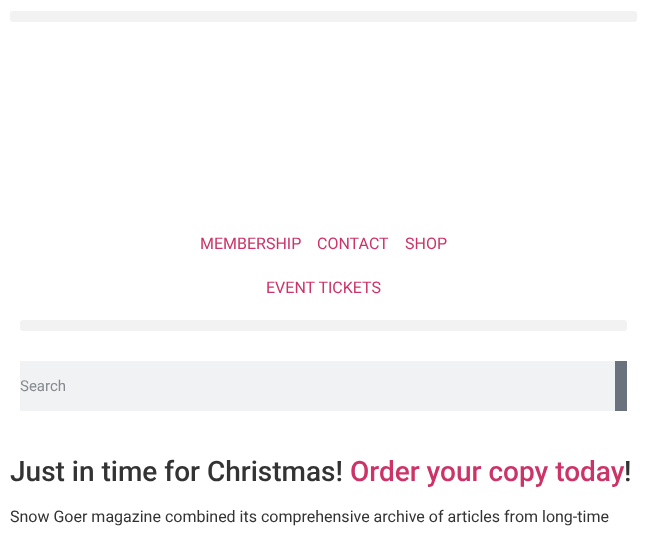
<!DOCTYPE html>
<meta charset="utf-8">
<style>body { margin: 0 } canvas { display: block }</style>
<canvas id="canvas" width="647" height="539"></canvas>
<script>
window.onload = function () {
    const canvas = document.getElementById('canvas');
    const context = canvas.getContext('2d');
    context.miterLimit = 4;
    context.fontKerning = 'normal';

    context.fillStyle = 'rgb(255, 255, 255)';
    context.fillRect(0, 0, 647, 539);
    context.fillStyle = 'rgb(242, 242, 242)';
    context.beginPath();
    context.roundRect(10, 11, 627, 11, 3);
    context.fill();
    context.beginPath();
    context.roundRect(20, 320, 607, 11, 3);
    context.fill();
    context.fillStyle = 'rgb(241, 242, 243)';
    context.fillRect(20, 361, 595, 50);
    context.fillStyle = 'rgb(105, 114, 125)';
    context.fillRect(615, 361, 12, 50);
    context.font = '16px Roboto';
    context.fillStyle = 'rgb(204, 51, 102)';
    context.fillText('MEMBERSHIP', 200, 249);
    context.fillText('CONTACT', 317, 249);
    context.fillText('SHOP', 405, 249);
    context.fillText('EVENT TICKETS', 266, 293);
    context.font = '15px Roboto';
    context.fillStyle = 'rgb(134, 138, 142)';
    context.fillText('Search', 20, 391);
    context.font = '500 28px Roboto';
    context.fillStyle = 'rgb(51, 51, 51)';
    context.fillText('Just in time for Christmas!', 10, 481);
    context.fillStyle = 'rgb(204, 51, 102)';
    context.fillText('Order your copy today', 350, 481);
    context.fillStyle = 'rgb(51, 51, 51)';
    context.fillText('!', 624, 481);
    context.font = '16px Roboto';
    context.fillText('Snow Goer magazine combined its comprehensive archive of articles from long-time', 10, 522);
};
</script>
